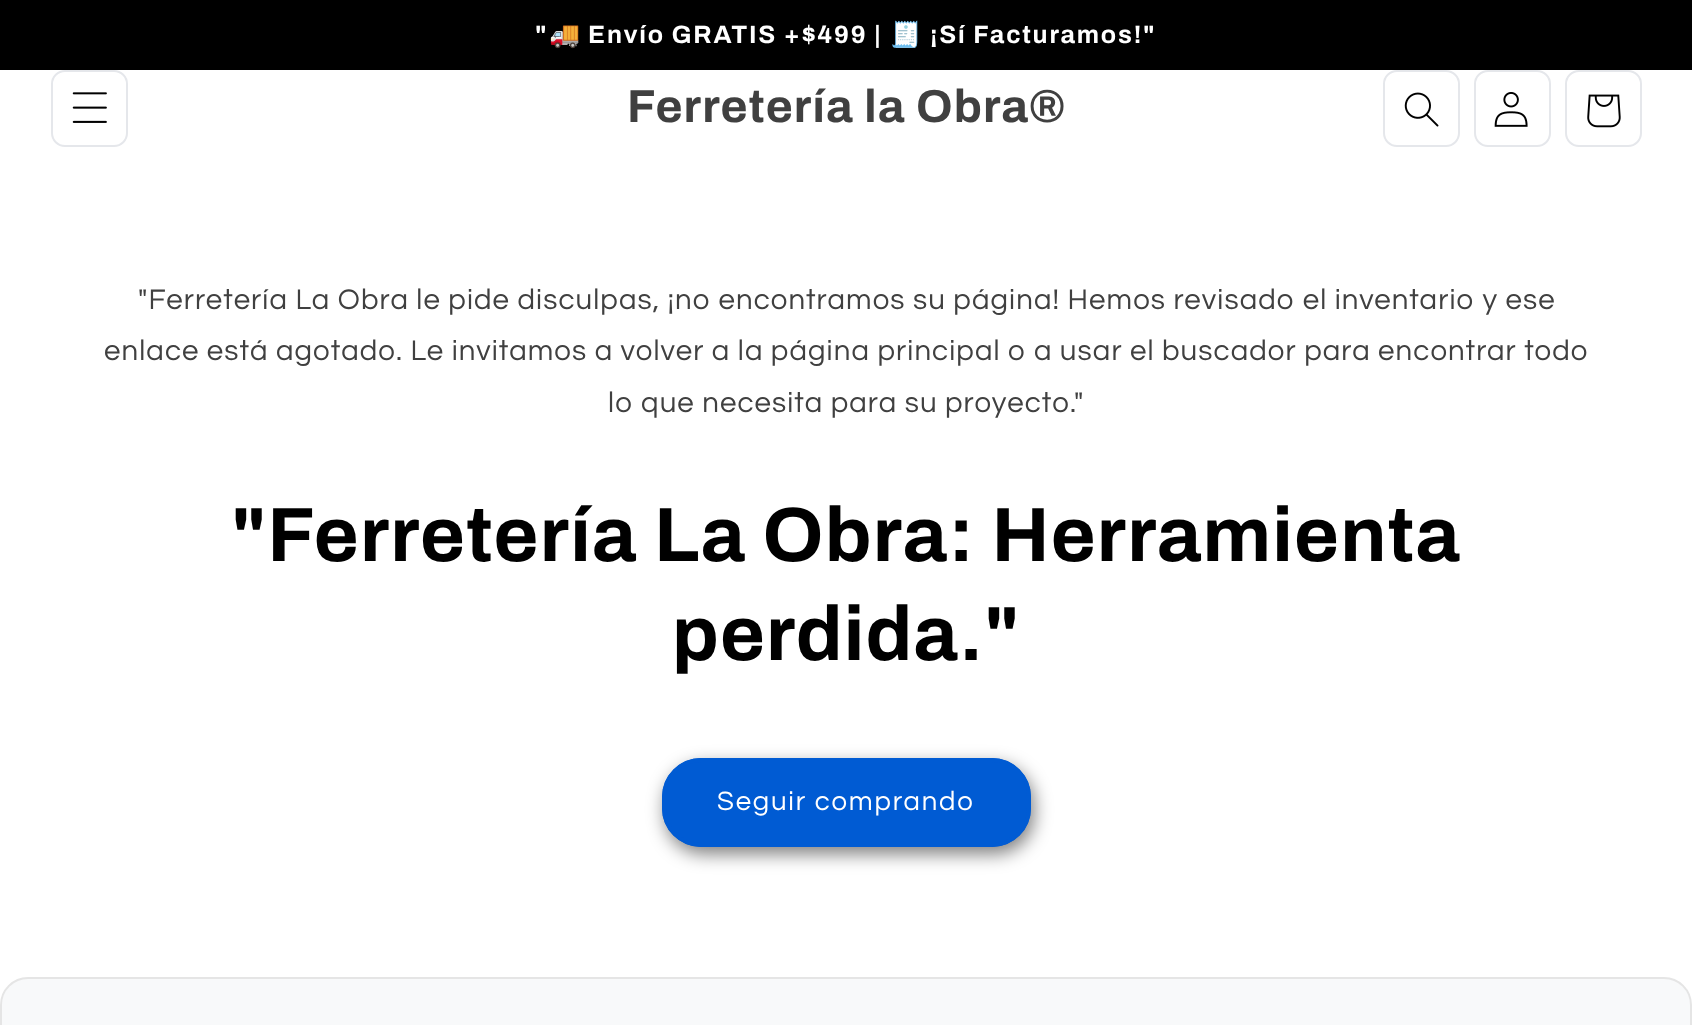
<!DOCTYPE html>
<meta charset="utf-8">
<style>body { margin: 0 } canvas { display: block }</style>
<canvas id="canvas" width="1692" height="1025"></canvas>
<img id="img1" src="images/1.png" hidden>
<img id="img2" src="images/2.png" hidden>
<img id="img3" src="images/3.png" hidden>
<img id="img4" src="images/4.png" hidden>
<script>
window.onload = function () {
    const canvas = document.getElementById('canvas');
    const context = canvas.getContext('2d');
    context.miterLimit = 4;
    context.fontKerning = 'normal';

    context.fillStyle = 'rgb(255, 255, 255)';
    context.fillRect(0, 0, 1692, 1025);
    context.fillStyle = 'rgb(0, 0, 0)';
    context.fillRect(0, 0, 1692, 70);
    context.beginPath();
    context.roundRect(52, 71, 75, 75, 13);
    context.strokeStyle = 'rgb(229, 231, 235)';
    context.lineWidth = 2;
    context.stroke();
    context.drawImage(document.getElementById('img1'), 72, 92, 35, 31);
    context.beginPath();
    context.roundRect(1384, 71, 75, 75, 13);
    context.stroke();
    context.drawImage(document.getElementById('img2'), 1404, 92, 35, 35);
    context.beginPath();
    context.roundRect(1475, 71, 75, 75, 13);
    context.stroke();
    context.drawImage(document.getElementById('img3'), 1494, 92, 34, 35);
    context.beginPath();
    context.roundRect(1566, 71, 75, 75, 13);
    context.stroke();
    context.drawImage(document.getElementById('img4'), 1587, 94, 34, 34);
    context.fillStyle = 'rgba(0, 0, 0, 0.5)';
    context.filter = 'blur(9px)';
    context.beginPath();
    context.roundRect(665, 765, 369, 89, 39);
    context.fill();
    context.filter = 'none';
    context.fillStyle = 'rgb(0, 91, 211)';
    context.beginPath();
    context.roundRect(662, 758, 369, 89, 39);
    context.fill();
    context.beginPath();
    context.roundRect(664, 760, 365, 85, 37);
    context.strokeStyle = 'rgb(0, 91, 211)';
    context.lineWidth = 4;
    context.stroke();
    context.fillStyle = 'rgb(248, 249, 250)';
    context.beginPath();
    context.roundRect(1, 978, 1690, 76, 27);
    context.fill();
    context.strokeStyle = 'rgb(229, 229, 229)';
    context.lineWidth = 2;
    context.stroke();
    context.letterSpacing = '1.8px';
    context.font = 'bold 25px Archivo';
    context.fillStyle = 'rgb(255, 255, 255)';
    context.fillText('"', 535, 43);
    context.font = 'bold 25px Noto Color Emoji';
    context.fillText('🚚', 549, 43);
    context.font = 'bold 25px Archivo';
    context.fillText('Envío GRATIS +$499 |', 588, 43);
    context.font = 'bold 25px Noto Color Emoji';
    context.fillText('🧾', 890, 43);
    context.font = 'bold 25px Archivo';
    context.fillText('¡Sí Facturamos!"', 930, 43);
    context.letterSpacing = '1.15px';
    context.font = 'bold 46.25px Archivo';
    context.fillStyle = 'rgb(64, 64, 64)';
    context.fillText('Ferretería la Obra®', 627, 122);
    context.letterSpacing = '1.1px';
    context.font = '29.4px Questrial';
    context.fillText('"Ferretería La Obra le pide disculpas, ¡no encontramos su página! Hemos revisado el inventario y ese', 138, 309);
    context.fillText('enlace está agotado. Le invitamos a volver a la página principal o a usar el buscador para encontrar todo', 104, 360);
    context.fillText('lo que necesita para su proyecto."', 608, 412);
    context.letterSpacing = '1.15px';
    context.font = 'bold 77px Archivo';
    context.fillStyle = 'rgb(0, 0, 0)';
    context.fillText('"Ferretería La Obra: Herramienta', 231, 561);
    context.fillText('perdida."', 672, 660);
    context.letterSpacing = '1.8px';
    context.font = '27.5px Questrial';
    context.fillStyle = 'rgb(255, 255, 255)';
    context.fillText('Seguir comprando', 717, 810);
};
</script>
